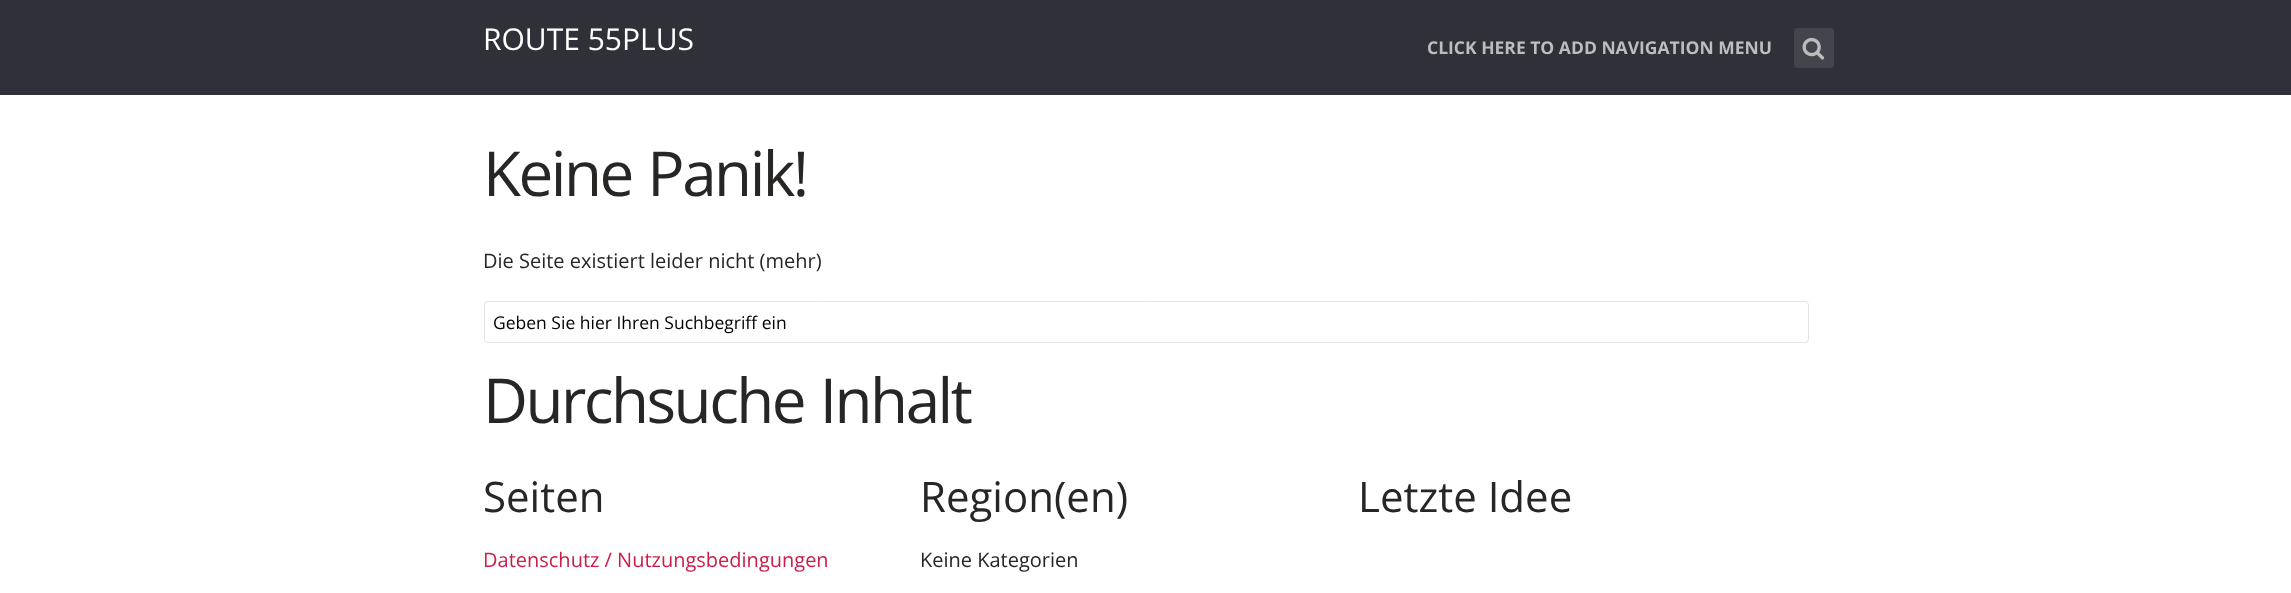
<!DOCTYPE html>
<meta charset="utf-8">
<style>body { margin: 0 } canvas { display: block }</style>
<canvas id="canvas" width="2291" height="593"></canvas>
<img id="img1" src="images/1.png" hidden>
<script>
window.onload = function () {
    const canvas = document.getElementById('canvas');
    const context = canvas.getContext('2d');
    context.miterLimit = 4;
    context.fontKerning = 'normal';

    context.fillStyle = 'rgb(255, 255, 255)';
    context.fillRect(0, 0, 2291, 593);
    context.fillStyle = 'rgb(47, 48, 56)';
    context.fillRect(0, 0, 2291, 95);
    context.fillStyle = 'rgb(68, 69, 76)';
    context.beginPath();
    context.roundRect(1794, 28, 40, 40, 4);
    context.fill();
    context.drawImage(document.getElementById('img1'), 1802, 37, 23, 23);
    context.beginPath();
    context.roundRect(484.5, 301.5, 1324, 41, 3.5);
    context.strokeStyle = 'rgb(228, 228, 228)';
    context.stroke();
    context.font = '30px Open Sans';
    context.fillStyle = 'rgb(255, 255, 255)';
    context.fillText('ROUTE 55PLUS', 483, 50);
    context.font = 'bold 17.5px Open Sans';
    context.fillStyle = 'rgb(189, 189, 189)';
    context.fillText('CLICK HERE TO ADD NAVIGATION MENU', 1427, 54);
    context.letterSpacing = '-2.5px';
    context.wordSpacing = '2px';
    context.font = '62px Open Sans';
    context.fillStyle = 'rgb(40, 37, 37)';
    context.fillText('Keine Panik!', 483, 196);
    context.letterSpacing = '0px';
    context.wordSpacing = '0px';
    context.font = '20px Open Sans';
    context.fillText('Die Seite existiert leider nicht (mehr)', 483, 268);
    context.font = '17.5px Open Sans';
    context.fillStyle = 'rgb(1, 1, 1)';
    context.fillText('Geben Sie hier Ihren Suchbegriff ein', 493, 329);
    context.letterSpacing = '-2.5px';
    context.wordSpacing = '2px';
    context.font = '62px Open Sans';
    context.fillStyle = 'rgb(40, 37, 37)';
    context.fillText('Durchsuche Inhalt', 483, 423);
    context.letterSpacing = '0px';
    context.wordSpacing = '0px';
    context.font = '42px Open Sans';
    context.fillText('Seiten', 483, 512);
    context.font = '20px Open Sans';
    context.fillStyle = 'rgb(204, 28, 74)';
    context.fillText('Datenschutz / Nutzungsbedingungen', 483, 567);
    context.font = '42px Open Sans';
    context.fillStyle = 'rgb(40, 37, 37)';
    context.fillText('Region(en)', 920, 512);
    context.font = '20px Open Sans';
    context.fillText('Keine Kategorien', 920, 567);
    context.font = '42px Open Sans';
    context.fillText('Letzte Idee', 1358, 512);
};
</script>
